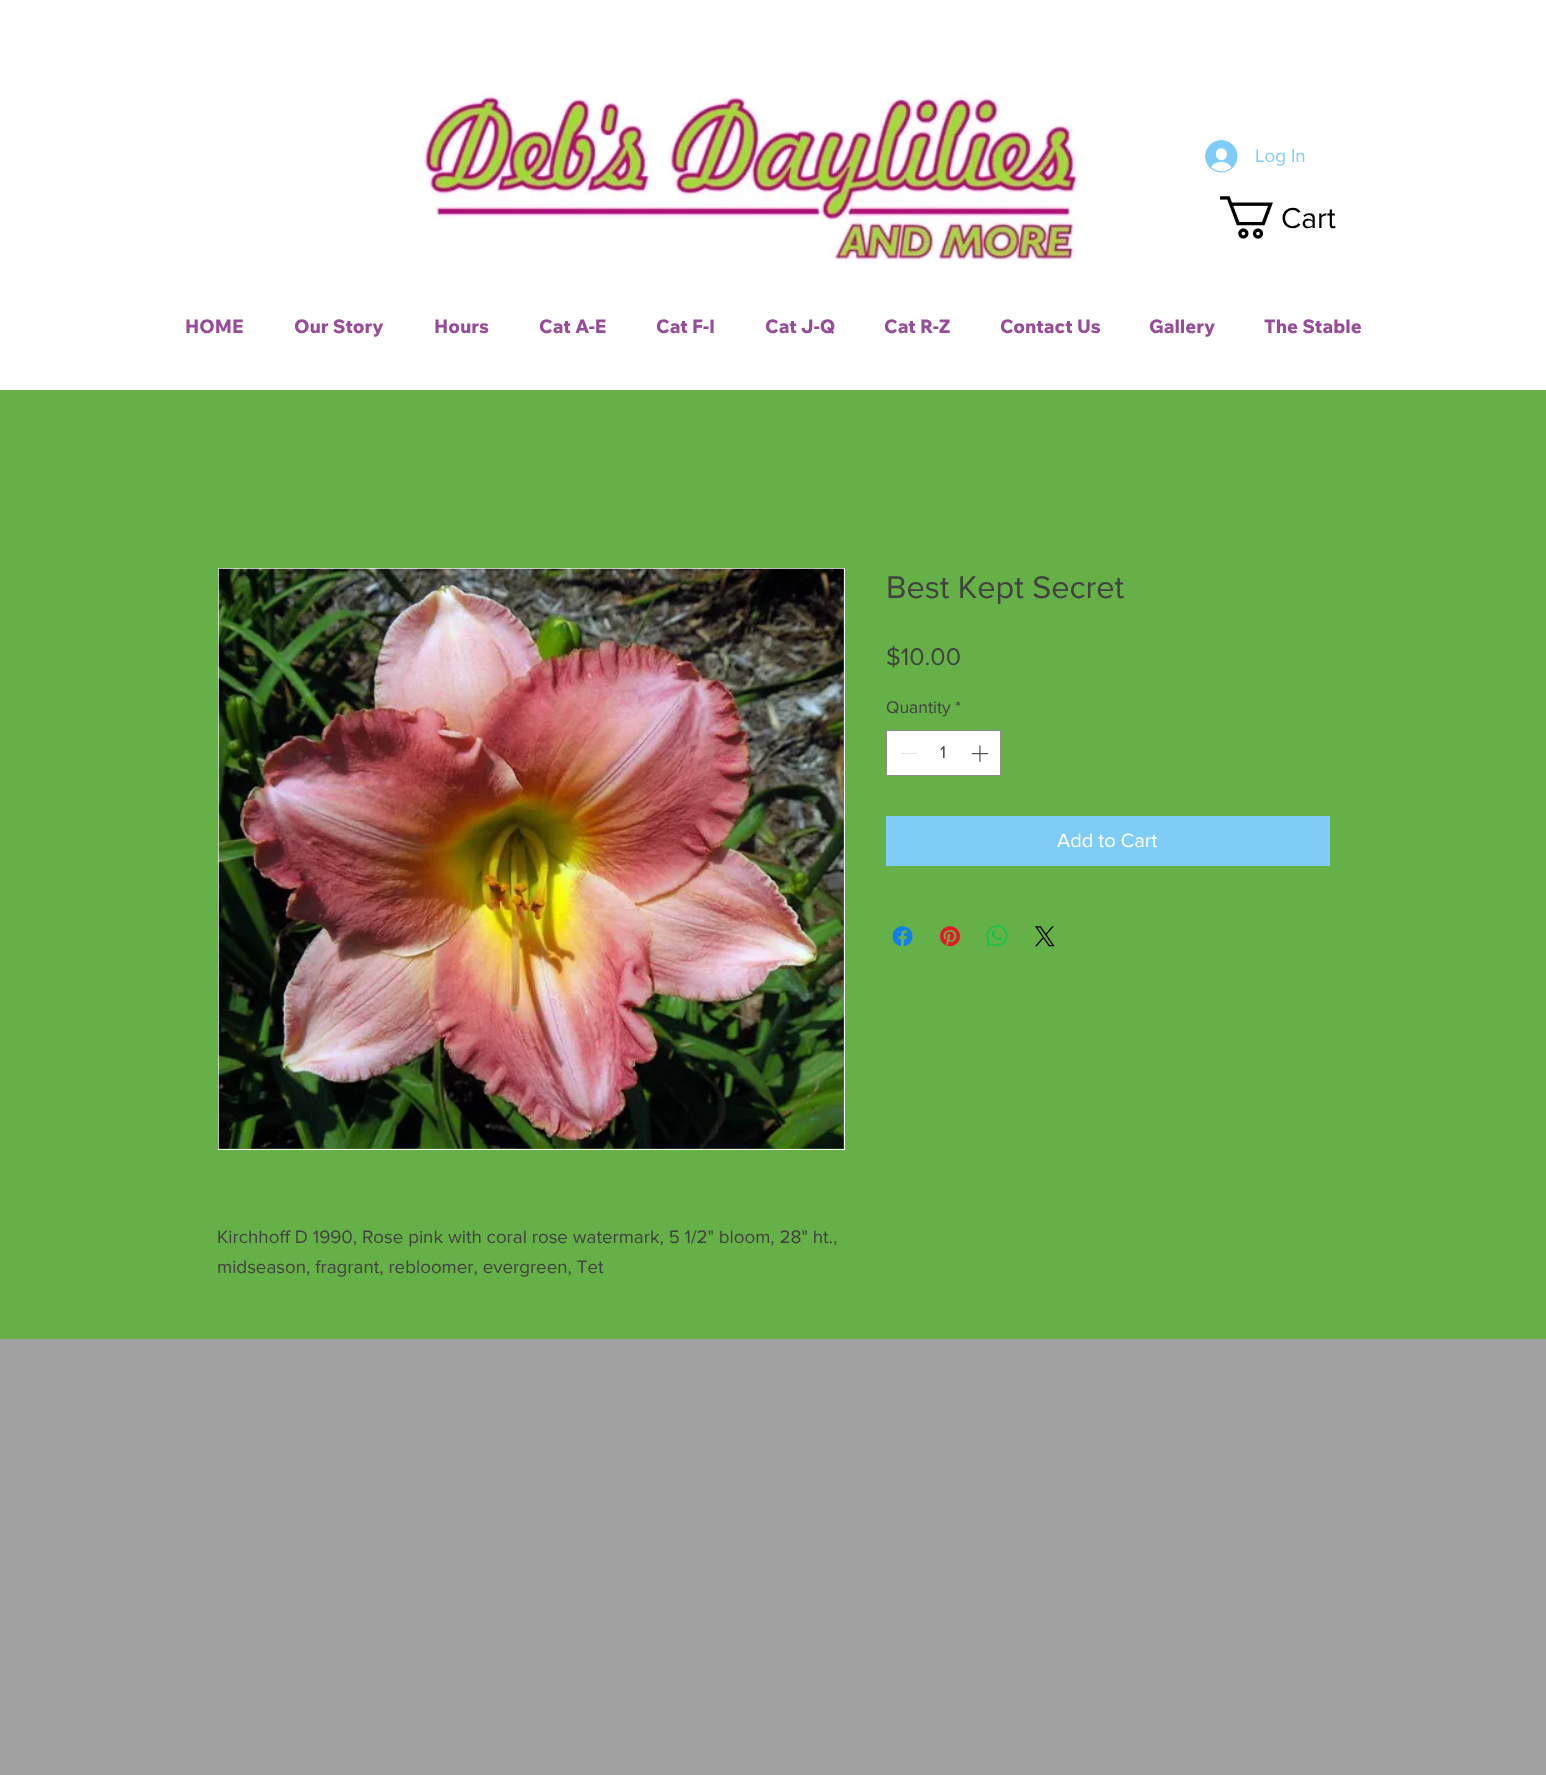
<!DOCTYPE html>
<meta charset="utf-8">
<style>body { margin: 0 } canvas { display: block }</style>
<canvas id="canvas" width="1546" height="1775"></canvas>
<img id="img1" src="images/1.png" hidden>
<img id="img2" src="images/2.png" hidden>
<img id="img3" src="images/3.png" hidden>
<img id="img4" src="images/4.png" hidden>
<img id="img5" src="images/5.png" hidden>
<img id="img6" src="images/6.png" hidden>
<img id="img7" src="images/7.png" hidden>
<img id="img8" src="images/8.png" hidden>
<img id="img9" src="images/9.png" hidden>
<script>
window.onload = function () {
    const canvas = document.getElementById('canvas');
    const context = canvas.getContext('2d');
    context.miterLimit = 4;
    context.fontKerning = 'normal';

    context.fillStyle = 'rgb(255, 255, 255)';
    context.fillRect(0, 0, 1546, 1775);
    context.drawImage(document.getElementById('img1'), 419, 93, 660, 168);
    context.drawImage(document.getElementById('img2'), 1205, 140, 33, 33);
    context.drawImage(document.getElementById('img3'), 1220, 196, 53, 43);
    context.fillStyle = 'rgb(102, 177, 71)';
    context.fillRect(0, 390, 1546, 949);
    context.fillStyle = 'rgb(255, 255, 255)';
    context.beginPath();
    context.rect(886.5, 730.5, 114, 45);
    context.fill();
    context.strokeStyle = 'rgb(141, 141, 141)';
    context.stroke();
    context.fillStyle = 'rgb(227, 227, 227)';
    context.fillRect(901, 753, 16, 1);
    context.drawImage(document.getElementById('img4'), 971, 745, 18, 17);
    context.fillStyle = 'rgb(127, 204, 247)';
    context.fillRect(886, 816, 444, 50);
    context.drawImage(document.getElementById('img5'), 892, 926, 21, 21);
    context.drawImage(document.getElementById('img6'), 940, 926, 20, 21);
    context.drawImage(document.getElementById('img7'), 986, 925, 22, 22);
    context.drawImage(document.getElementById('img8'), 1035, 926, 20, 21);
    context.strokeStyle = 'rgb(249, 249, 249)';
    context.strokeRect(218.5, 568.5, 626, 581);
    context.drawImage(document.getElementById('img9'), 218, 568, 626, 581);
    context.fillStyle = 'rgb(161, 161, 161)';
    context.fillRect(0, 1339, 1546, 436);
    context.font = '18.75px "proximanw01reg"';
    context.fillStyle = 'rgb(127, 204, 247)';
    context.fillText('Log In', 1255, 162);
    context.font = '30px "proximanw01reg"';
    context.fillStyle = 'rgb(0, 0, 0)';
    context.fillText('Cart', 1281, 228);
    context.font = '800 18.75px Wix Madefor Text';
    context.fillStyle = 'rgb(150, 76, 152)';
    context.fillText('HOME', 185, 333);
    context.fillText('Our Story', 294, 333);
    context.fillText('Hours', 434, 333);
    context.fillText('Cat A-E', 539, 333);
    context.fillText('Cat F-I', 656, 333);
    context.fillText('Cat J-Q', 765, 333);
    context.fillText('Cat R-Z', 884, 333);
    context.fillText('Contact Us', 1000, 333);
    context.fillText('Gallery', 1149, 333);
    context.fillText('The Stable', 1264, 333);
    context.font = '32.5px "proximanw01reg"';
    context.fillStyle = 'rgb(65, 65, 65)';
    context.fillText('Best Kept Secret', 886, 598);
    context.font = '25px "proximanw01reg"';
    context.fillText('$10.00', 886, 665);
    context.font = '17.5px "proximanw01reg"';
    context.fillText('Quantity', 886, 713);
    context.fillText('*', 955, 713);
    context.fillText('1', 940, 758);
    context.font = '20px "proximanw01reg"';
    context.fillStyle = 'rgb(255, 255, 255)';
    context.fillText('Add to Cart', 1057, 847);
    context.font = '18.75px "proximanw01reg"';
    context.fillStyle = 'rgb(65, 65, 65)';
    context.fillText('Kirchhoff D 1990, Rose pink with coral rose watermark, 5 1/2" bloom, 28" ht.,', 217, 1243);
    context.fillText('midseason, fragrant, rebloomer, evergreen, Tet', 217, 1273);
};
</script>
